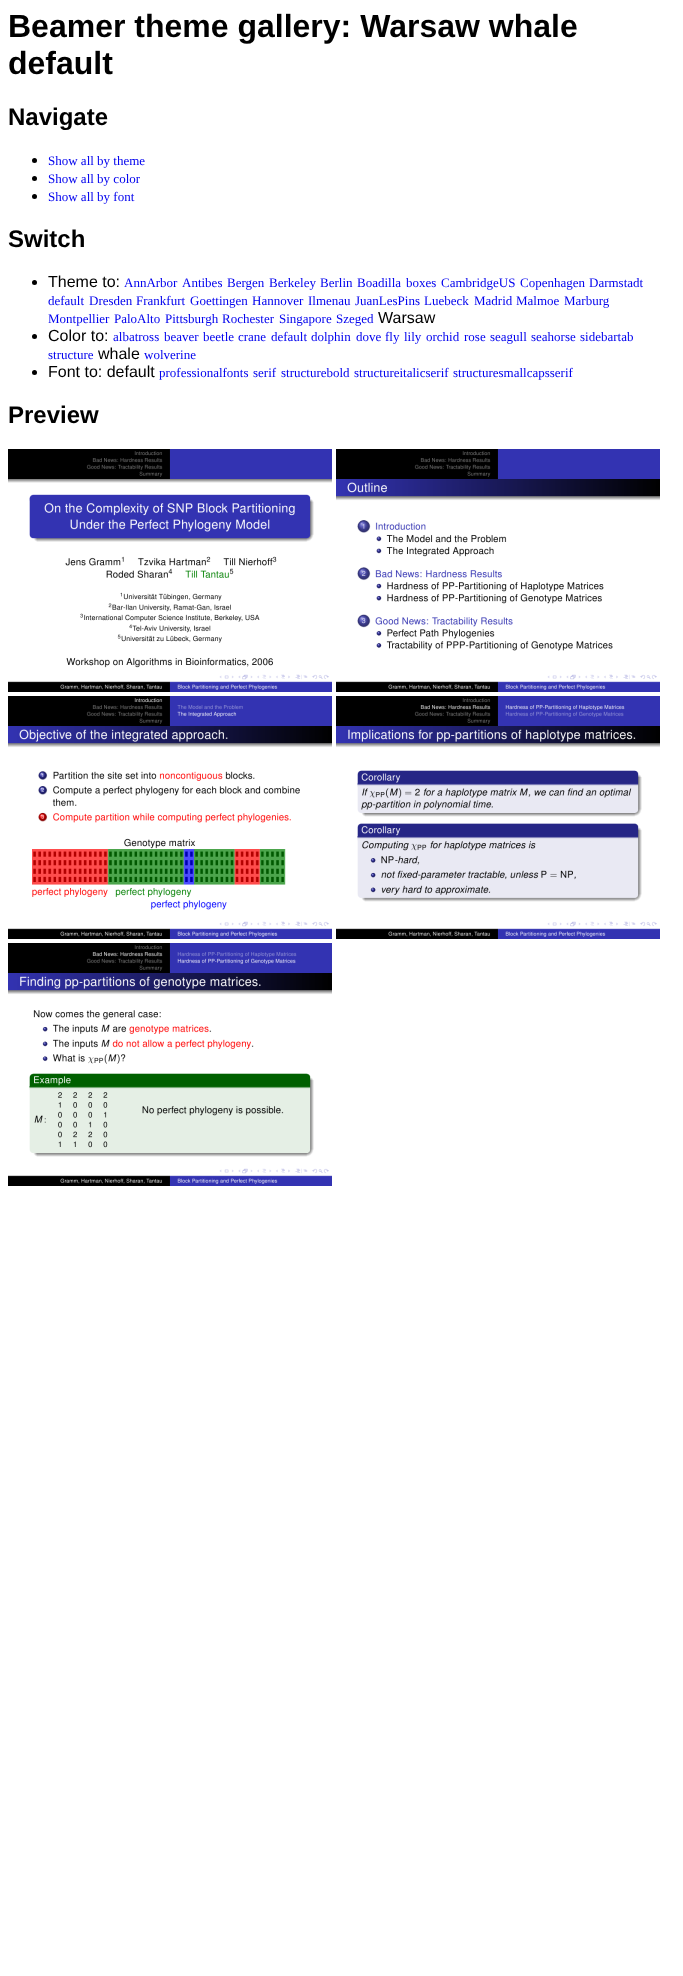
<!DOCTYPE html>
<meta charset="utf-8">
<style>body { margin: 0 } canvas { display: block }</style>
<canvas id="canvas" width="683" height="1976"></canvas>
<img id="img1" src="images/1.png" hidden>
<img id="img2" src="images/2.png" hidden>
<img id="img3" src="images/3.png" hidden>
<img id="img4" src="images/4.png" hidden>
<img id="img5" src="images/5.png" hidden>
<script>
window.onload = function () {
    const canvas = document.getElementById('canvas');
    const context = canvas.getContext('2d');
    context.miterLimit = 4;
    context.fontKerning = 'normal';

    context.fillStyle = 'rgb(255, 255, 255)';
    context.fillRect(0, 0, 683, 1976);
    context.fillStyle = 'rgb(0, 0, 0)';
    context.beginPath();
    context.arc(34.5, 160.5, 2.5, 0, 2 * Math.PI);
    context.fill();
    context.beginPath();
    context.arc(34.5, 178.5, 2.5, 0, 2 * Math.PI);
    context.fill();
    context.beginPath();
    context.arc(34.5, 196.5, 2.5, 0, 2 * Math.PI);
    context.fill();
    context.beginPath();
    context.arc(34.5, 282.5, 2.5, 0, 2 * Math.PI);
    context.fill();
    context.beginPath();
    context.arc(34.5, 336.5, 2.5, 0, 2 * Math.PI);
    context.fill();
    context.beginPath();
    context.arc(34.5, 372.5, 2.5, 0, 2 * Math.PI);
    context.fill();
    context.drawImage(document.getElementById('img1'), 8, 449, 324, 243);
    context.drawImage(document.getElementById('img2'), 336, 449, 324, 243);
    context.drawImage(document.getElementById('img3'), 8, 696, 324, 243);
    context.drawImage(document.getElementById('img4'), 336, 696, 324, 243);
    context.drawImage(document.getElementById('img5'), 8, 943, 324, 243);
    context.font = 'bold 32px Liberation Sans';
    context.fillText('Beamer theme gallery: Warsaw whale', 8, 37);
    context.fillText('default', 8, 74);
    context.font = 'bold 24px Liberation Sans';
    context.fillText('Navigate', 8, 125);
    context.font = '13px Liberation Serif';
    context.fillStyle = 'rgb(0, 0, 238)';
    context.fillText('Show all by theme', 48, 165);
    context.fillText('Show all by color', 48, 183);
    context.fillText('Show all by font', 48, 201);
    context.font = 'bold 24px Liberation Sans';
    context.fillStyle = 'rgb(0, 0, 0)';
    context.fillText('Switch', 8, 247);
    context.font = '16px Liberation Sans';
    context.fillText('Theme to:', 48, 287);
    context.font = '13px Liberation Serif';
    context.fillStyle = 'rgb(0, 0, 238)';
    context.fillText('AnnArbor', 124, 287);
    context.fillText('Antibes', 182, 287);
    context.fillText('Bergen', 227, 287);
    context.fillText('Berkeley', 269, 287);
    context.fillText('Berlin', 320, 287);
    context.fillText('Boadilla', 357, 287);
    context.fillText('boxes', 406, 287);
    context.fillText('CambridgeUS', 441, 287);
    context.fillText('Copenhagen', 520, 287);
    context.fillText('Darmstadt', 589, 287);
    context.fillText('default', 48, 305);
    context.fillText('Dresden', 89, 305);
    context.fillText('Frankfurt', 136, 305);
    context.fillText('Goettingen', 190, 305);
    context.fillText('Hannover', 252, 305);
    context.fillText('Ilmenau', 308, 305);
    context.fillText('JuanLesPins', 355, 305);
    context.fillText('Luebeck', 424, 305);
    context.fillText('Madrid', 474, 305);
    context.fillText('Malmoe', 516, 305);
    context.fillText('Marburg', 564, 305);
    context.fillText('Montpellier', 48, 323);
    context.fillText('PaloAlto', 114, 323);
    context.fillText('Pittsburgh', 165, 323);
    context.fillText('Rochester', 222, 323);
    context.fillText('Singapore', 279, 323);
    context.fillText('Szeged', 336, 323);
    context.font = '16px Liberation Sans';
    context.fillStyle = 'rgb(0, 0, 0)';
    context.fillText('Warsaw', 378, 323);
    context.fillText('Color to:', 48, 341);
    context.font = '13px Liberation Serif';
    context.fillStyle = 'rgb(0, 0, 238)';
    context.fillText('albatross', 113, 341);
    context.fillText('beaver', 164, 341);
    context.fillText('beetle', 203, 341);
    context.fillText('crane', 238, 341);
    context.fillText('default', 271, 341);
    context.fillText('dolphin', 311, 341);
    context.fillText('dove', 356, 341);
    context.fillText('fly', 385, 341);
    context.fillText('lily', 404, 341);
    context.fillText('orchid', 426, 341);
    context.fillText('rose', 464, 341);
    context.fillText('seagull', 490, 341);
    context.fillText('seahorse', 531, 341);
    context.fillText('sidebartab', 580, 341);
    context.fillText('structure', 48, 359);
    context.font = '16px Liberation Sans';
    context.fillStyle = 'rgb(0, 0, 0)';
    context.fillText('whale', 98, 359);
    context.font = '13px Liberation Serif';
    context.fillStyle = 'rgb(0, 0, 238)';
    context.fillText('wolverine', 144, 359);
    context.font = '16px Liberation Sans';
    context.fillStyle = 'rgb(0, 0, 0)';
    context.fillText('Font to: default', 48, 377);
    context.font = '13px Liberation Serif';
    context.fillStyle = 'rgb(0, 0, 238)';
    context.fillText('professionalfonts', 159, 377);
    context.fillText('serif', 253, 377);
    context.fillText('structurebold', 281, 377);
    context.fillText('structureitalicserif', 354, 377);
    context.fillText('structuresmallcapsserif', 453, 377);
    context.font = 'bold 24px Liberation Sans';
    context.fillStyle = 'rgb(0, 0, 0)';
    context.fillText('Preview', 8, 423);
};
</script>
